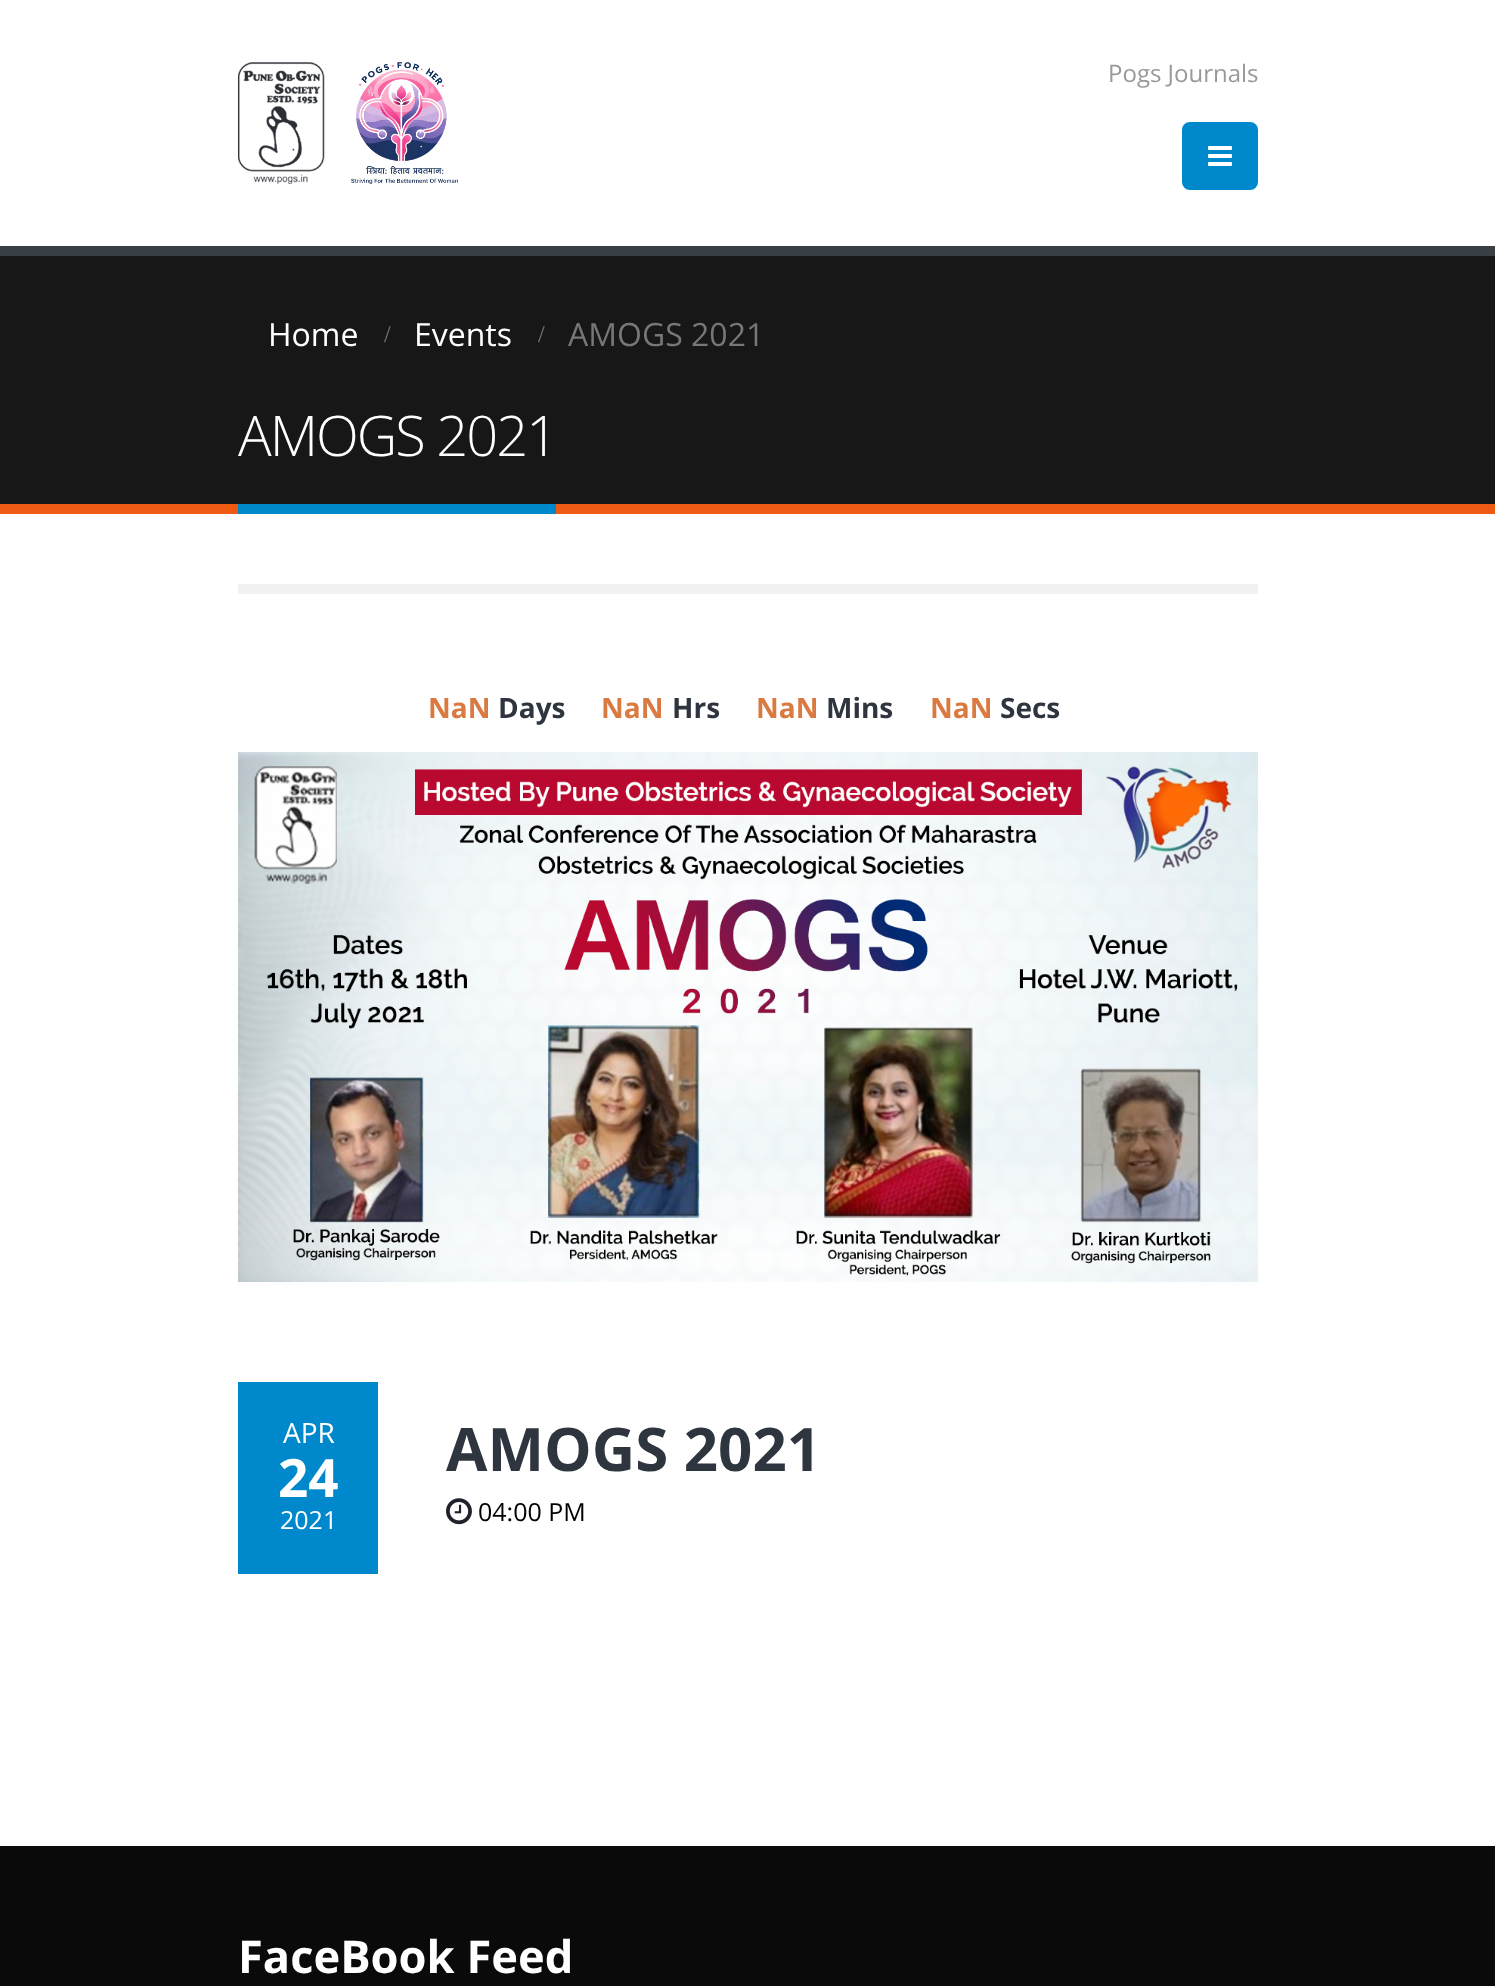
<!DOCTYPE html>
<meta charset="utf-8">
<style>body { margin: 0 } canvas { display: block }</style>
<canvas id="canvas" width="1495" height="1986"></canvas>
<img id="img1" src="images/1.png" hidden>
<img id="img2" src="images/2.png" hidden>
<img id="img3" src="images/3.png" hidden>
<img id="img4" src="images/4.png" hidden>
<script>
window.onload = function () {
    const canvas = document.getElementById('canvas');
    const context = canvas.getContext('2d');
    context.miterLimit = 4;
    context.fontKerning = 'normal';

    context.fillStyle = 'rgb(255, 255, 255)';
    context.fillRect(0, 0, 1495, 1986);
    context.drawImage(document.getElementById('img1'), 238, 62, 220, 122);
    context.fillStyle = 'rgb(0, 136, 204)';
    context.beginPath();
    context.roundRect(1182, 122, 76, 68, 8);
    context.fill();
    context.drawImage(document.getElementById('img2'), 1208, 146, 24, 20);
    context.fillStyle = 'rgb(23, 23, 23)';
    context.fillRect(0, 256, 1495, 248);
    context.fillStyle = 'rgb(56, 64, 69)';
    context.fillRect(0, 246, 1495, 10);
    context.fillStyle = 'rgb(238, 90, 18)';
    context.fillRect(0, 504, 1495, 10);
    context.fillStyle = 'rgb(0, 136, 204)';
    context.fillRect(238, 504, 318, 10);
    context.fillStyle = 'rgb(241, 241, 241)';
    context.fillRect(238, 584, 1020, 10);
    context.drawImage(document.getElementById('img3'), 238, 752, 1020, 530);
    context.fillStyle = 'rgb(0, 136, 204)';
    context.fillRect(238, 1382, 140, 192);
    context.drawImage(document.getElementById('img4'), 446, 1498, 26, 27);
    context.fillStyle = 'rgb(10, 10, 10)';
    context.fillRect(0, 1846, 1495, 140);
    context.font = '24px Open Sans';
    context.fillStyle = 'rgb(153, 153, 153)';
    context.fillText('Pogs Journals', 1108, 82);
    context.font = '32px Open Sans';
    context.fillStyle = 'rgb(255, 255, 255)';
    context.fillText('Home', 268, 346);
    context.font = '24px Liberation Serif';
    context.fillStyle = 'rgb(119, 119, 119)';
    context.fillText('/', 384, 342);
    context.font = '32px Open Sans';
    context.fillStyle = 'rgb(255, 255, 255)';
    context.fillText('Events', 414, 346);
    context.font = '24px Liberation Serif';
    context.fillStyle = 'rgb(119, 119, 119)';
    context.fillText('/', 538, 342);
    context.font = '32px Open Sans';
    context.fillText('AMOGS 2021', 568, 346);
    context.letterSpacing = '-2px';
    context.font = '300 56px Open Sans';
    context.fillStyle = 'rgb(255, 255, 255)';
    context.fillText('AMOGS 2021', 238, 456);
    context.letterSpacing = '0px';
    context.font = 'bold 28px Open Sans';
    context.fillStyle = 'rgb(218, 121, 64)';
    context.fillText('NaN', 428, 718);
    context.fillStyle = 'rgb(46, 53, 62)';
    context.fillText('Days', 498, 718);
    context.fillStyle = 'rgb(218, 121, 64)';
    context.fillText('NaN', 601, 718);
    context.fillStyle = 'rgb(46, 53, 62)';
    context.fillText('Hrs', 672, 718);
    context.fillStyle = 'rgb(218, 121, 64)';
    context.fillText('NaN', 756, 718);
    context.fillStyle = 'rgb(46, 53, 62)';
    context.fillText('Mins', 826, 718);
    context.fillStyle = 'rgb(218, 121, 64)';
    context.fillText('NaN', 930, 718);
    context.fillStyle = 'rgb(46, 53, 62)';
    context.fillText('Secs', 1000, 718);
    context.font = '28px Open Sans';
    context.fillStyle = 'rgb(255, 255, 255)';
    context.fillText('APR', 283, 1443);
    context.font = 'bold 53px Open Sans';
    context.fillText('24', 278, 1497);
    context.font = '25px Open Sans';
    context.fillText('2021', 280, 1529);
    context.font = 'bold 60px Open Sans';
    context.fillStyle = 'rgb(46, 53, 62)';
    context.fillText('AMOGS 2021', 446, 1471);
    context.font = '25px Open Sans';
    context.fillStyle = 'rgb(0, 0, 0)';
    context.fillText('04:00 PM', 478, 1521);
    context.font = 'bold 45.25px Open Sans';
    context.fillStyle = 'rgb(255, 255, 255)';
    context.fillText('FaceBook Feed', 238, 1973);
};
</script>
